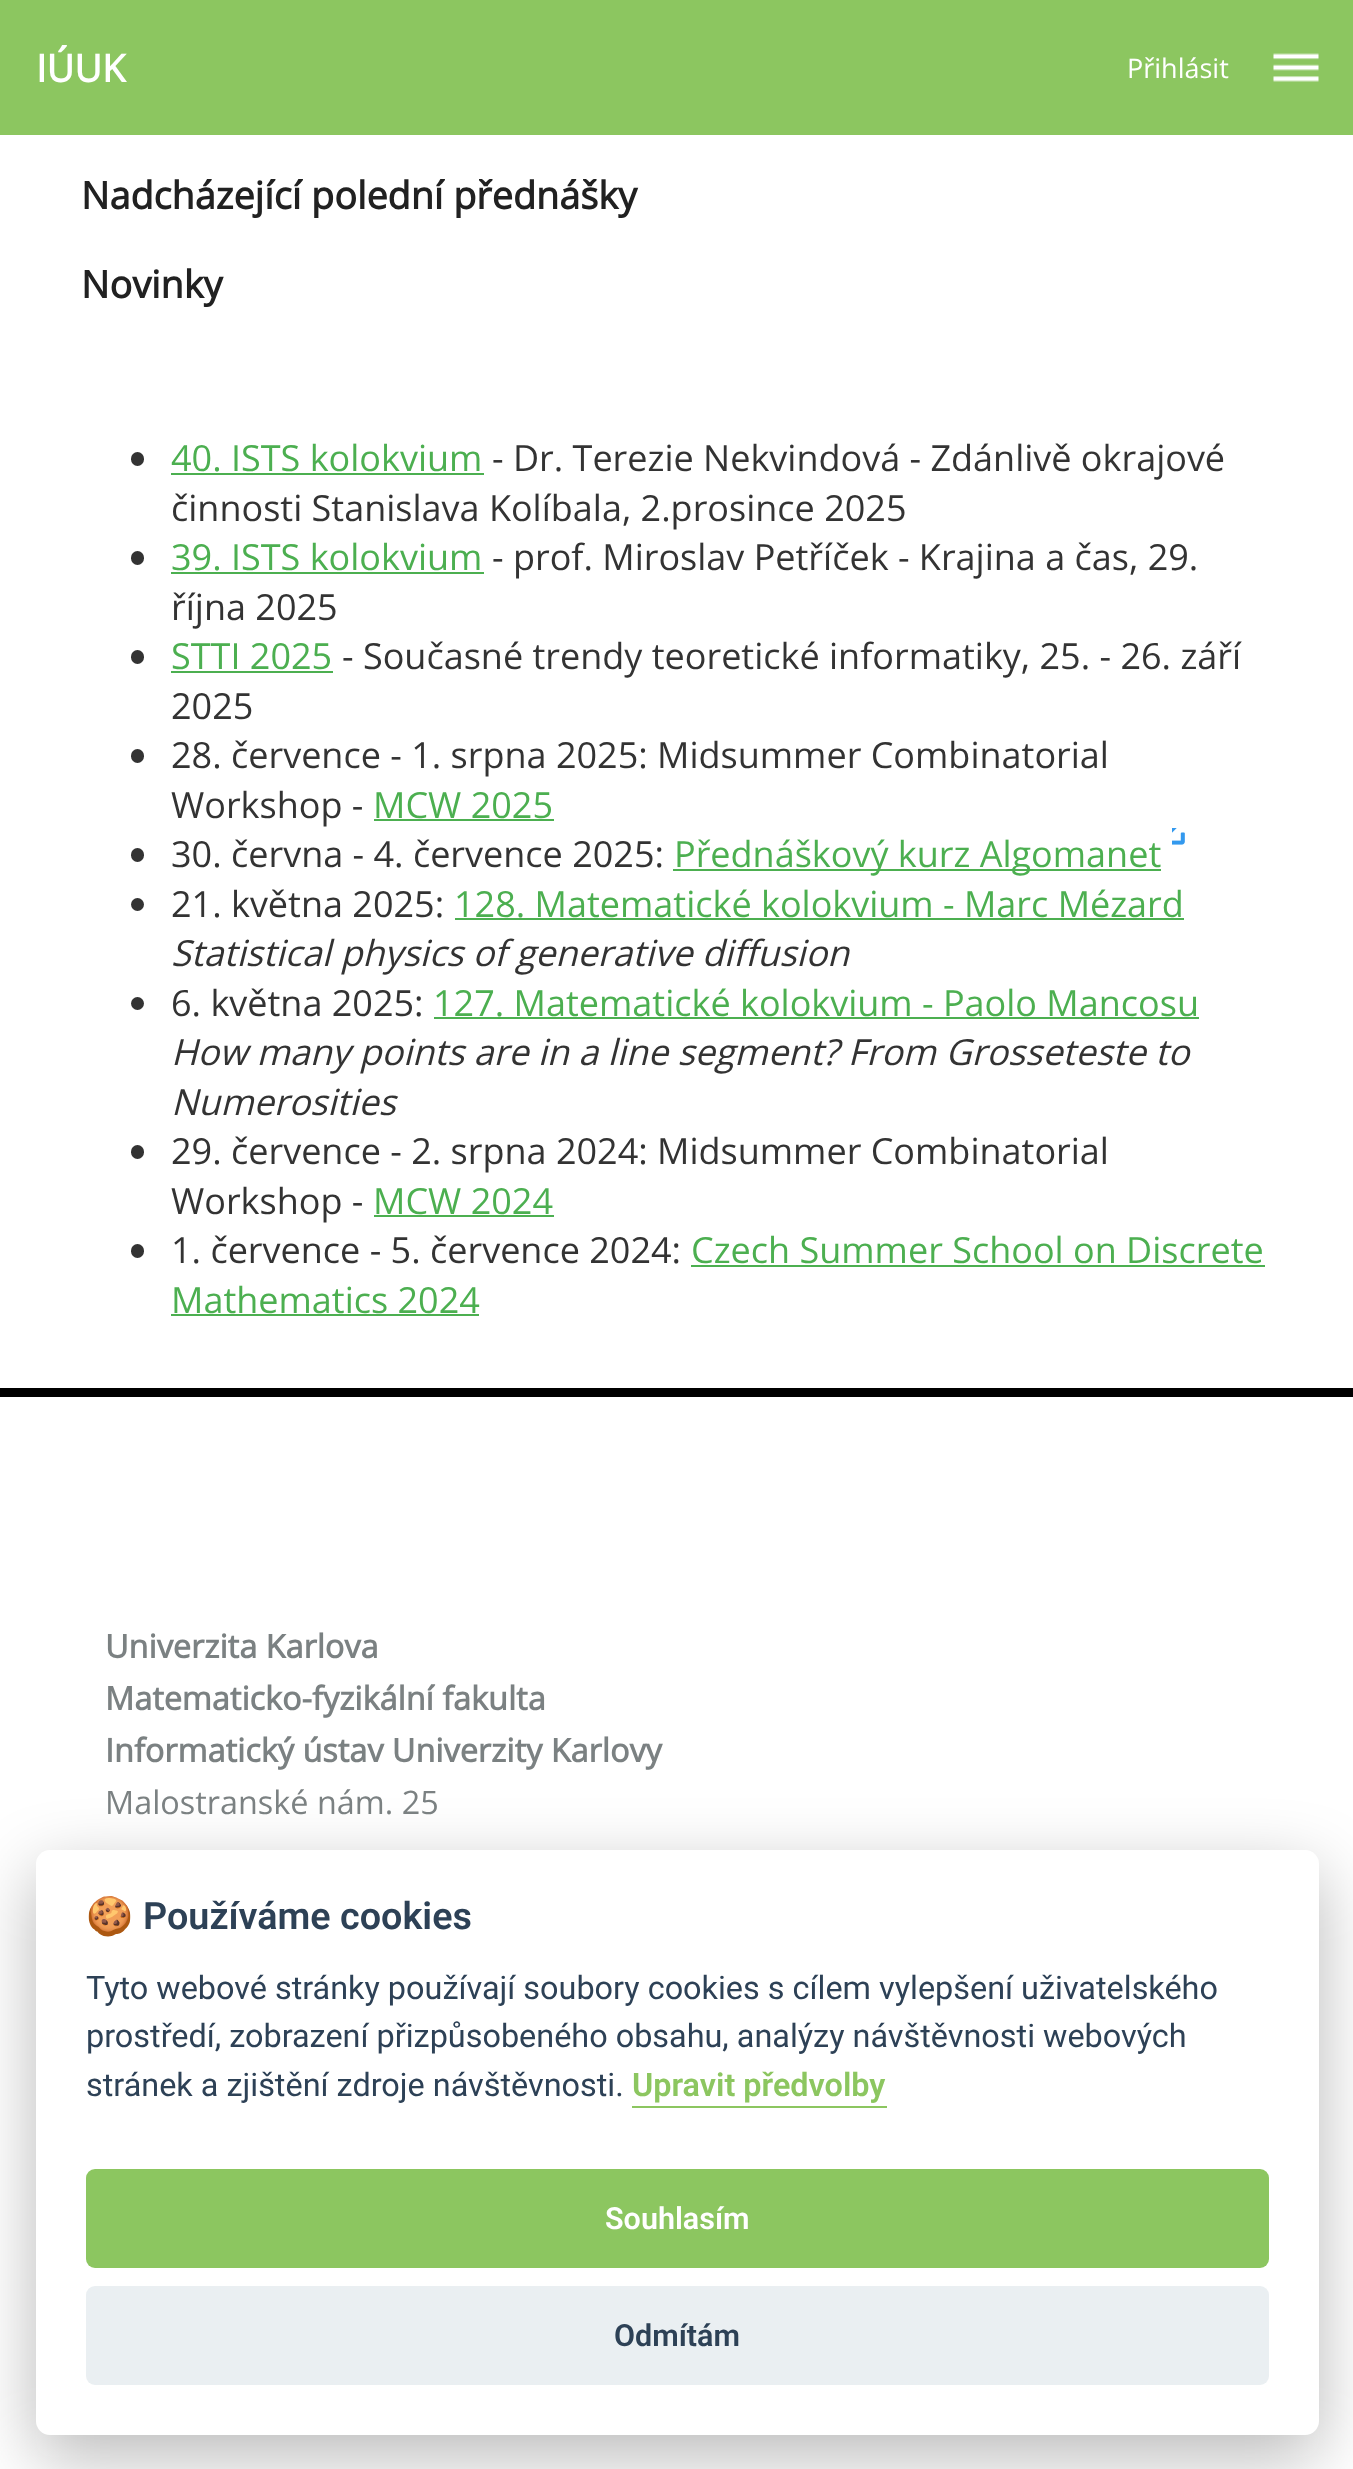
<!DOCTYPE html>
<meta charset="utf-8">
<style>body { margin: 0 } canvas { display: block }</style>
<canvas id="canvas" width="1353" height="2469"></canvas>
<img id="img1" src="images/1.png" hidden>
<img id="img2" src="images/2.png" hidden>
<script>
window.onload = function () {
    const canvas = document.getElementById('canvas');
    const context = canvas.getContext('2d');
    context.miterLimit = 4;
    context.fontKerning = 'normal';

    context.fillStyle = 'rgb(255, 255, 255)';
    context.fillRect(0, 0, 1353, 2469);
    context.fillStyle = 'rgb(140, 198, 96)';
    context.fillRect(0, 0, 1353, 135);
    context.drawImage(document.getElementById('img1'), 1273, 53, 46, 29);
    context.fillStyle = 'rgb(51, 51, 51)';
    context.beginPath();
    context.roundRect(131, 452, 13, 14, 6.5);
    context.fill();
    context.fillStyle = 'rgb(76, 175, 80)';
    context.fillRect(171, 473, 313, 2);
    context.fillStyle = 'rgb(51, 51, 51)';
    context.beginPath();
    context.roundRect(131, 551, 13, 14, 6.5);
    context.fill();
    context.fillStyle = 'rgb(76, 175, 80)';
    context.fillRect(171, 572, 313, 2);
    context.fillStyle = 'rgb(51, 51, 51)';
    context.beginPath();
    context.roundRect(131, 650, 13, 14, 6.5);
    context.fill();
    context.fillStyle = 'rgb(76, 175, 80)';
    context.fillRect(171, 671, 162, 2);
    context.fillStyle = 'rgb(51, 51, 51)';
    context.beginPath();
    context.roundRect(131, 749, 13, 14, 6.5);
    context.fill();
    context.fillStyle = 'rgb(76, 175, 80)';
    context.fillRect(374, 819, 180, 2);
    context.drawImage(document.getElementById('img2'), 1172, 828, 13, 17);
    context.fillStyle = 'rgb(51, 51, 51)';
    context.beginPath();
    context.roundRect(131, 848, 13, 14, 6.5);
    context.fill();
    context.fillStyle = 'rgb(76, 175, 80)';
    context.fillRect(673, 869, 488, 2);
    context.fillStyle = 'rgb(51, 51, 51)';
    context.beginPath();
    context.arc(137.5, 904.5, 6.5, 0, 2 * Math.PI);
    context.fill();
    context.fillStyle = 'rgb(76, 175, 80)';
    context.fillRect(455, 918, 729, 2);
    context.fillStyle = 'rgb(51, 51, 51)';
    context.beginPath();
    context.arc(137.5, 1003.5, 6.5, 0, 2 * Math.PI);
    context.fill();
    context.fillStyle = 'rgb(76, 175, 80)';
    context.fillRect(434, 1017, 765, 2);
    context.fillStyle = 'rgb(51, 51, 51)';
    context.beginPath();
    context.roundRect(131, 1145, 13, 14, 6.5);
    context.fill();
    context.fillStyle = 'rgb(76, 175, 80)';
    context.fillRect(374, 1215, 180, 2);
    context.fillStyle = 'rgb(51, 51, 51)';
    context.beginPath();
    context.roundRect(131, 1244, 13, 14, 6.5);
    context.fill();
    context.fillStyle = 'rgb(76, 175, 80)';
    context.fillRect(691, 1265, 574, 2);
    context.fillRect(171, 1314, 308, 2);
    context.fillStyle = 'rgb(0, 0, 0)';
    context.fillRect(0, 1388, 1353, 9);
    context.fillStyle = 'rgba(2, 2, 3, 0.28)';
    context.filter = 'blur(34px)';
    context.beginPath();
    context.roundRect(36, 1872, 1283, 585, 14);
    context.fill();
    context.filter = 'none';
    context.fillStyle = 'rgb(255, 255, 255)';
    context.beginPath();
    context.roundRect(36, 1850, 1283, 585, 14);
    context.fill();
    context.fillStyle = 'rgb(140, 198, 96)';
    context.fillRect(632, 2106, 255, 2);
    context.beginPath();
    context.roundRect(86, 2169, 1183, 99, 9);
    context.fill();
    context.fillStyle = 'rgb(234, 239, 242)';
    context.beginPath();
    context.roundRect(86, 2286, 1183, 99, 9);
    context.fill();
    context.font = 'bold 38px Open Sans';
    context.fillStyle = 'rgb(255, 255, 255)';
    context.fillText('IÚUK', 36, 82);
    context.font = '27px Open Sans';
    context.fillText('Přihlásit', 1127, 78);
    context.font = 'bold 37.75px Open Sans';
    context.fillStyle = 'rgb(33, 33, 33)';
    context.fillText('Nadcházející polední přednášky', 81, 209);
    context.fillText('Novinky', 81, 298);
    context.font = '36px Open Sans';
    context.fillStyle = 'rgb(76, 175, 80)';
    context.fillText('40. ISTS kolokvium', 171, 471);
    context.fillStyle = 'rgb(51, 51, 51)';
    context.fillText('- Dr. Terezie Nekvindová - Zdánlivě okrajové', 492, 471);
    context.fillText('činnosti Stanislava Kolíbala, 2.prosince 2025', 171, 521);
    context.fillStyle = 'rgb(76, 175, 80)';
    context.fillText('39. ISTS kolokvium', 171, 570);
    context.fillStyle = 'rgb(51, 51, 51)';
    context.fillText('- prof. Miroslav Petříček - Krajina a čas, 29.', 492, 570);
    context.fillText('října 2025', 171, 620);
    context.fillStyle = 'rgb(76, 175, 80)';
    context.fillText('STTI 2025', 171, 669);
    context.fillStyle = 'rgb(51, 51, 51)';
    context.fillText('- Současné trendy teoretické informatiky, 25. - 26. září', 342, 669);
    context.fillText('2025', 171, 719);
    context.fillText('28. července - 1. srpna 2025: Midsummer Combinatorial', 171, 768);
    context.fillText('Workshop -', 171, 818);
    context.fillStyle = 'rgb(76, 175, 80)';
    context.fillText('MCW 2025', 373, 818);
    context.fillStyle = 'rgb(51, 51, 51)';
    context.fillText('30. června - 4. července 2025:', 171, 867);
    context.fillStyle = 'rgb(76, 175, 80)';
    context.fillText('Přednáškový kurz Algomanet', 674, 867);
    context.fillStyle = 'rgb(51, 51, 51)';
    context.fillText('21. května 2025:', 171, 917);
    context.fillStyle = 'rgb(76, 175, 80)';
    context.fillText('128. Matematické kolokvium - Marc Mézard', 454, 917);
    context.font = 'italic 36px Open Sans';
    context.fillStyle = 'rgb(51, 51, 51)';
    context.fillText('Statistical physics of generative diffusion', 171, 966);
    context.font = '36px Open Sans';
    context.fillText('6. května 2025:', 171, 1016);
    context.fillStyle = 'rgb(76, 175, 80)';
    context.fillText('127. Matematické kolokvium - Paolo Mancosu', 433, 1016);
    context.font = 'italic 36px Open Sans';
    context.fillStyle = 'rgb(51, 51, 51)';
    context.fillText('How many points are in a line segment? From Grosseteste to', 171, 1065);
    context.fillText('Numerosities', 171, 1115);
    context.font = '36px Open Sans';
    context.fillText('29. července - 2. srpna 2024: Midsummer Combinatorial', 171, 1164);
    context.fillText('Workshop -', 171, 1214);
    context.fillStyle = 'rgb(76, 175, 80)';
    context.fillText('MCW 2024', 373, 1214);
    context.fillStyle = 'rgb(51, 51, 51)';
    context.fillText('1. července - 5. července 2024:', 171, 1263);
    context.fillStyle = 'rgb(76, 175, 80)';
    context.fillText('Czech Summer School on Discrete', 691, 1263);
    context.fillText('Mathematics 2024', 171, 1313);
    context.font = 'bold 32.4px Open Sans';
    context.fillStyle = 'rgb(123, 129, 130)';
    context.fillText('Univerzita Karlova', 105, 1658);
    context.fillText('Matematicko-fyzikální fakulta', 105, 1710);
    context.fillText('Informatický ústav Univerzity Karlovy', 105, 1762);
    context.font = '32.4px Open Sans';
    context.fillText('Malostranské nám. 25', 105, 1814);
    context.font = 'bold 37.75px Noto Color Emoji';
    context.fillStyle = 'rgb(45, 65, 86)';
    context.fillText('🍪', 86, 1929);
    context.font = '600 37.75px Roboto';
    context.fillText('Používáme cookies', 143, 1929);
    context.font = '32.4px Roboto';
    context.fillText('Tyto webové stránky používají soubory cookies s cílem vylepšení uživatelského', 86, 1999);
    context.fillText('prostředí, zobrazení přizpůsobeného obsahu, analýzy návštěvnosti webových', 86, 2047);
    context.fillText('stránek a zjištění zdroje návštěvnosti.', 86, 2096);
    context.font = '600 32.4px Roboto';
    context.fillStyle = 'rgb(140, 198, 96)';
    context.fillText('Upravit předvolby', 632, 2096);
    context.font = '600 30.5px Roboto';
    context.fillStyle = 'rgb(255, 255, 255)';
    context.fillText('Souhlasím', 605, 2229);
    context.fillStyle = 'rgb(45, 65, 86)';
    context.fillText('Odmítám', 614, 2346);
};
</script>
